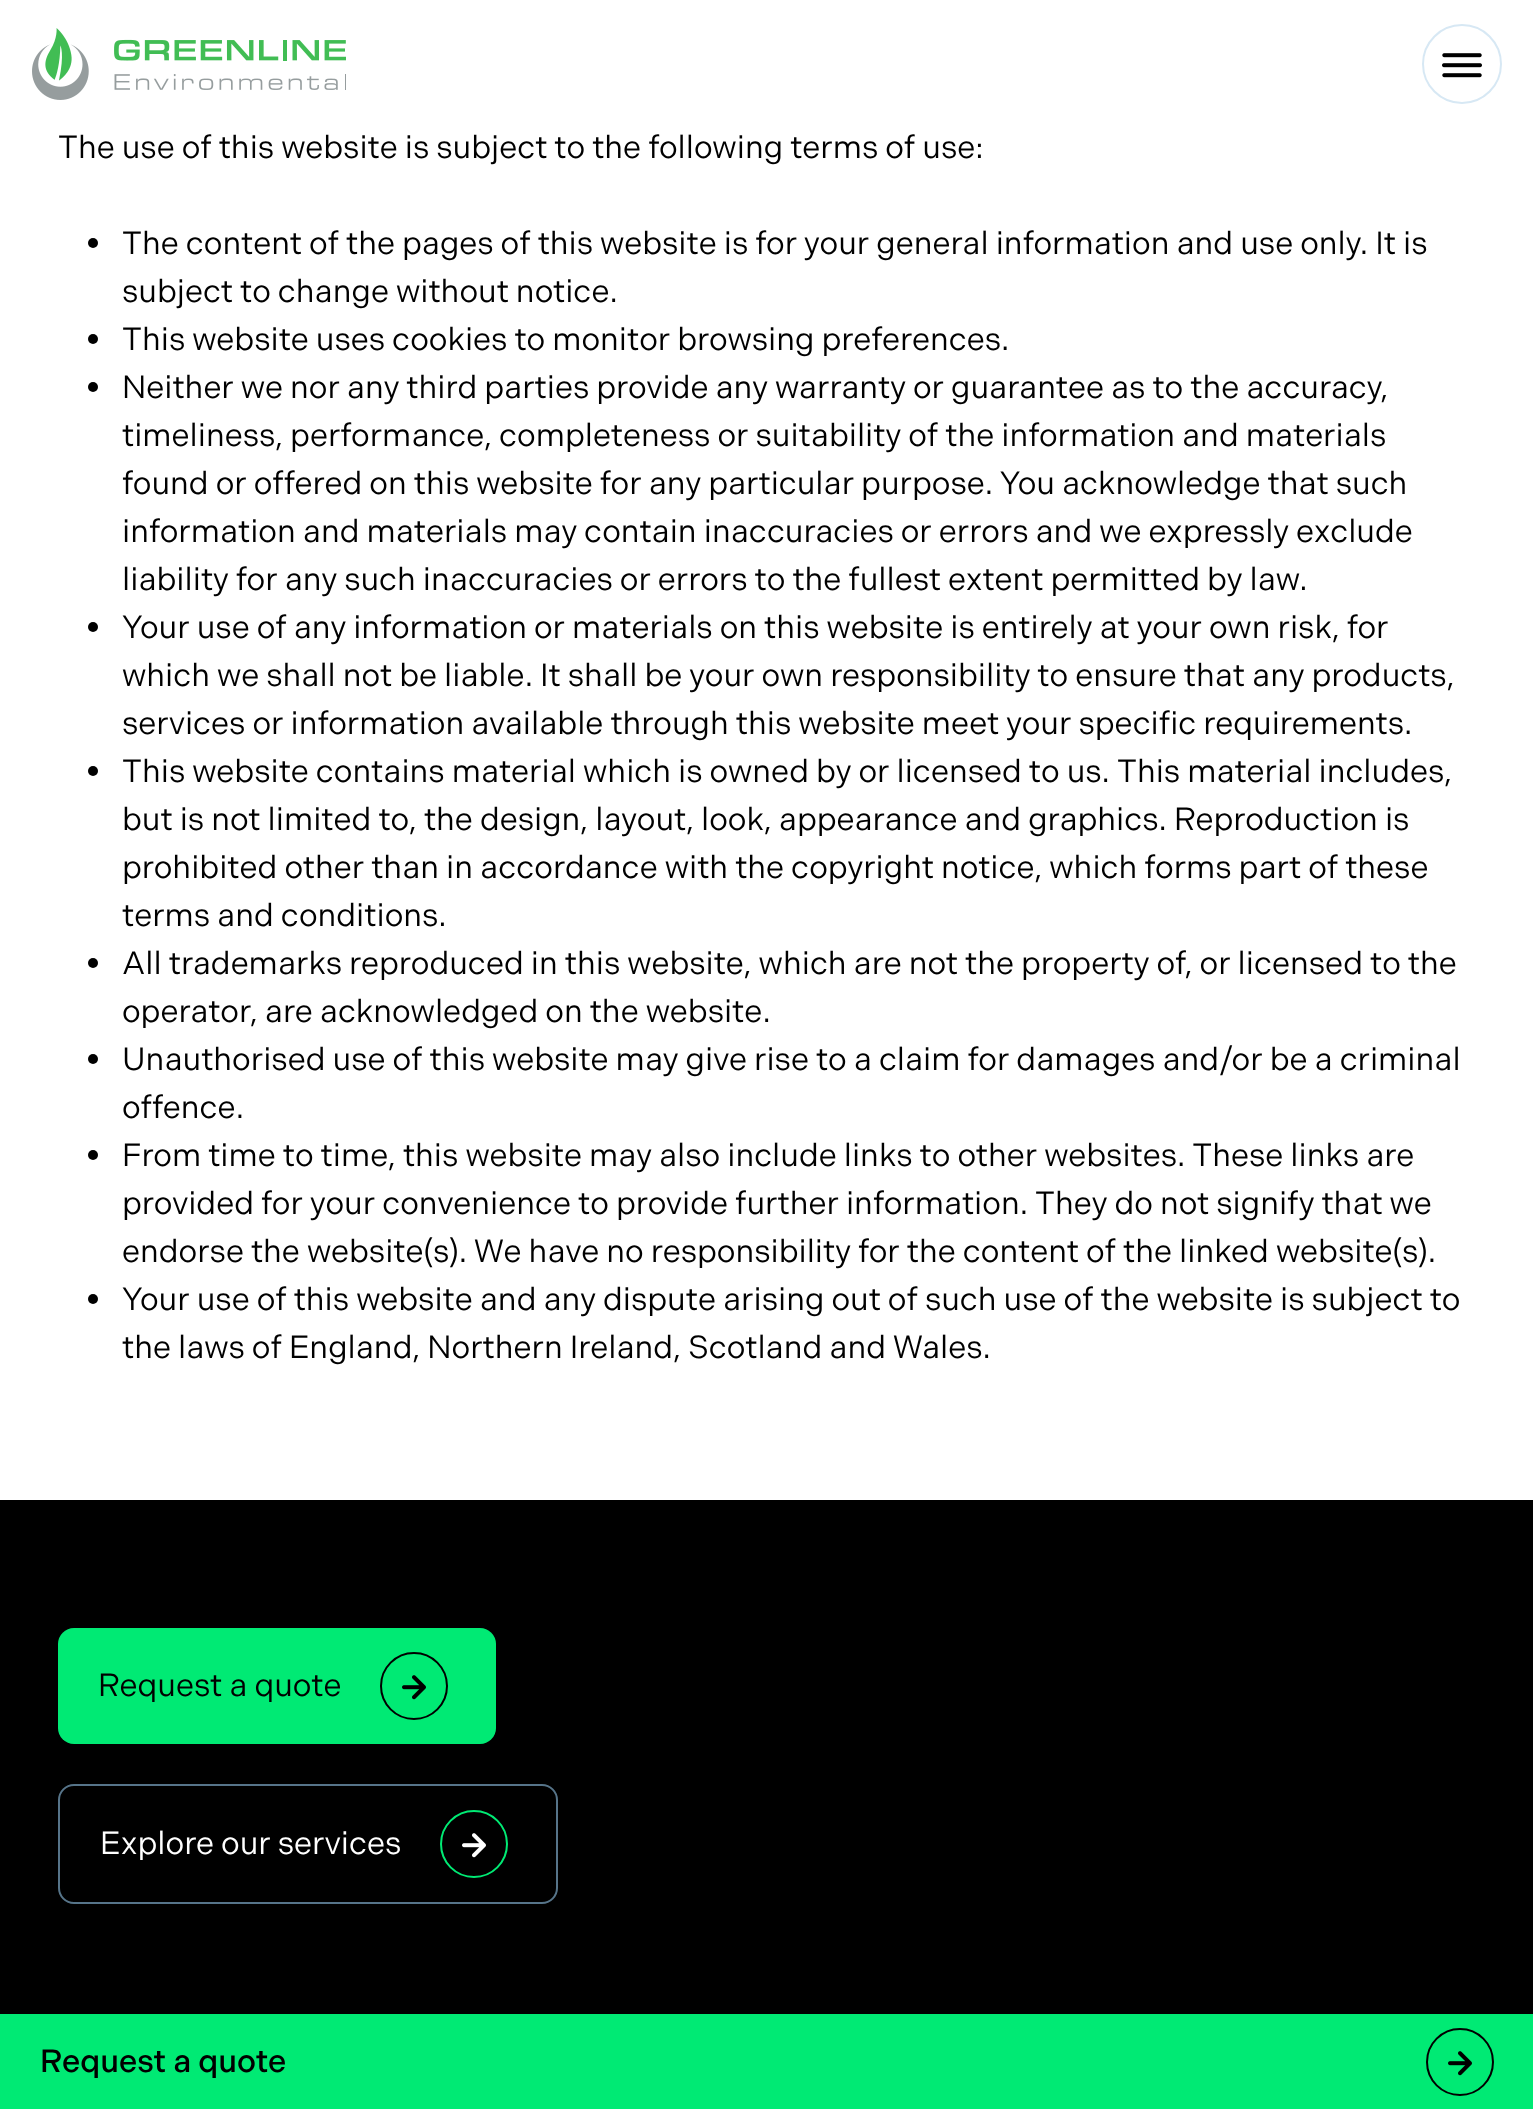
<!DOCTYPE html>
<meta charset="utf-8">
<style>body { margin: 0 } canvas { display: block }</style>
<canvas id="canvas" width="1533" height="2109"></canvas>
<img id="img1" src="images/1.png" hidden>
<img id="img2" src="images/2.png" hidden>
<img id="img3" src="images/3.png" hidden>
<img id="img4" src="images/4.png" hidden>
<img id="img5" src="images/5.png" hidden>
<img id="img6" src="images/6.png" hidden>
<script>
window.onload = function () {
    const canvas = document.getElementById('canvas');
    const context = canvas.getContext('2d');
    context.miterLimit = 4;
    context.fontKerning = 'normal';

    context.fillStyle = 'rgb(255, 255, 255)';
    context.fillRect(0, 0, 1533, 2109);
    context.drawImage(document.getElementById('img1'), 32, 28, 57, 72);
    context.drawImage(document.getElementById('img2'), 114, 39, 232, 22);
    context.drawImage(document.getElementById('img3'), 114, 74, 232, 16);
    context.beginPath();
    context.arc(1462, 64, 39, 0, 2 * Math.PI);
    context.strokeStyle = 'rgb(215, 232, 244)';
    context.lineWidth = 2;
    context.stroke();
    context.drawImage(document.getElementById('img4'), 1442, 53, 40, 25);
    context.fillStyle = 'rgb(0, 0, 0)';
    context.beginPath();
    context.arc(93, 243, 5, 0, 2 * Math.PI);
    context.fill();
    context.beginPath();
    context.arc(93, 339, 5, 0, 2 * Math.PI);
    context.fill();
    context.beginPath();
    context.arc(93, 387, 5, 0, 2 * Math.PI);
    context.fill();
    context.beginPath();
    context.arc(93, 627, 5, 0, 2 * Math.PI);
    context.fill();
    context.beginPath();
    context.arc(93, 771, 5, 0, 2 * Math.PI);
    context.fill();
    context.beginPath();
    context.arc(93, 963, 5, 0, 2 * Math.PI);
    context.fill();
    context.beginPath();
    context.arc(93, 1059, 5, 0, 2 * Math.PI);
    context.fill();
    context.beginPath();
    context.arc(93, 1155, 5, 0, 2 * Math.PI);
    context.fill();
    context.beginPath();
    context.arc(93, 1299, 5, 0, 2 * Math.PI);
    context.fill();
    context.fillRect(0, 1500, 1533, 514);
    context.fillStyle = 'rgb(0, 234, 116)';
    context.beginPath();
    context.roundRect(58, 1628, 438, 116, 16);
    context.fill();
    context.beginPath();
    context.arc(414, 1686, 33, 0, 2 * Math.PI);
    context.strokeStyle = 'rgb(0, 0, 0)';
    context.stroke();
    context.drawImage(document.getElementById('img5'), 402, 1675, 24, 25);
    context.beginPath();
    context.roundRect(59, 1785, 498, 118, 15);
    context.strokeStyle = 'rgb(86, 116, 137)';
    context.stroke();
    context.beginPath();
    context.arc(474, 1844, 33, 0, 2 * Math.PI);
    context.strokeStyle = 'rgb(0, 234, 116)';
    context.stroke();
    context.drawImage(document.getElementById('img6'), 462, 1833, 24, 25);
    context.fillRect(0, 2014, 1533, 95);
    context.beginPath();
    context.arc(1460, 2062, 33, 0, 2 * Math.PI);
    context.strokeStyle = 'rgb(0, 0, 0)';
    context.stroke();
    context.drawImage(document.getElementById('img5'), 1448, 2051, 24, 25);
    context.font = '32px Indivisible';
    context.fillStyle = 'rgb(0, 0, 0)';
    context.fillText('The use of this website is subject to the following terms of use:', 58, 158);
    context.fillText('The content of the pages of this website is for your general information and use only. It is', 122, 254);
    context.fillText('subject to change without notice.', 122, 302);
    context.fillText('This website uses cookies to monitor browsing preferences.', 122, 350);
    context.fillText('Neither we nor any third parties provide any warranty or guarantee as to the accuracy,', 122, 398);
    context.fillText('timeliness, performance, completeness or suitability of the information and materials', 122, 446);
    context.fillText('found or offered on this website for any particular purpose. You acknowledge that such', 122, 494);
    context.fillText('information and materials may contain inaccuracies or errors and we expressly exclude', 122, 542);
    context.fillText('liability for any such inaccuracies or errors to the fullest extent permitted by law.', 122, 590);
    context.fillText('Your use of any information or materials on this website is entirely at your own risk, for', 122, 638);
    context.fillText('which we shall not be liable. It shall be your own responsibility to ensure that any products,', 122, 686);
    context.fillText('services or information available through this website meet your specific requirements.', 122, 734);
    context.fillText('This website contains material which is owned by or licensed to us. This material includes,', 122, 782);
    context.fillText('but is not limited to, the design, layout, look, appearance and graphics. Reproduction is', 122, 830);
    context.fillText('prohibited other than in accordance with the copyright notice, which forms part of these', 122, 878);
    context.fillText('terms and conditions.', 122, 926);
    context.fillText('All trademarks reproduced in this website, which are not the property of, or licensed to the', 122, 974);
    context.fillText('operator, are acknowledged on the website.', 122, 1022);
    context.fillText('Unauthorised use of this website may give rise to a claim for damages and/or be a criminal', 122, 1070);
    context.fillText('offence.', 122, 1118);
    context.fillText('From time to time, this website may also include links to other websites. These links are', 122, 1166);
    context.fillText('provided for your convenience to provide further information. They do not signify that we', 122, 1214);
    context.fillText('endorse the website(s). We have no responsibility for the content of the linked website(s).', 122, 1262);
    context.fillText('Your use of this website and any dispute arising out of such use of the website is subject to', 122, 1310);
    context.fillText('the laws of England, Northern Ireland, Scotland and Wales.', 122, 1358);
    context.fillText('Request a quote', 98, 1696);
    context.fillStyle = 'rgb(255, 255, 255)';
    context.fillText('Explore our services', 100, 1854);
    context.font = '500 32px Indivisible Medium';
    context.fillStyle = 'rgb(0, 0, 0)';
    context.fillText('Request a quote', 40, 2072);
};
</script>
